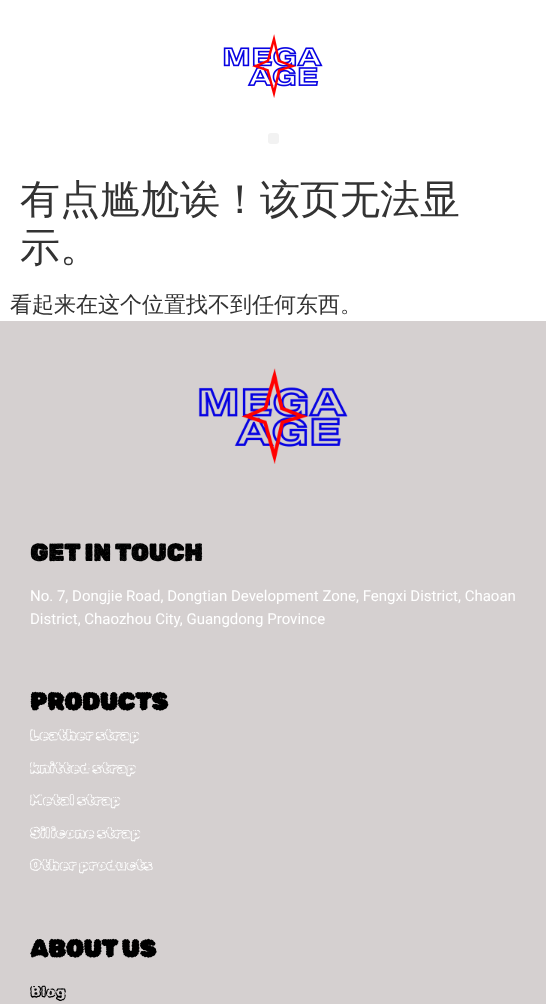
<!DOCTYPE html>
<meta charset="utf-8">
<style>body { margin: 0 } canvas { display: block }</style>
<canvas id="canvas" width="546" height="1004"></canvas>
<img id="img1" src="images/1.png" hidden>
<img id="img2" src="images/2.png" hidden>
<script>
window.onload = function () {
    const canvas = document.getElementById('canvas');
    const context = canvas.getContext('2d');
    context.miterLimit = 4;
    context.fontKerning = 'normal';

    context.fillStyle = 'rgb(255, 255, 255)';
    context.fillRect(0, 0, 546, 1004);
    context.drawImage(document.getElementById('img1'), 223, 34, 100, 64);
    context.fillStyle = 'rgb(242, 242, 242)';
    context.beginPath();
    context.roundRect(268, 133, 11, 11, 3);
    context.fill();
    context.fillStyle = 'rgb(213, 208, 208)';
    context.fillRect(0, 321, 546, 683);
    context.drawImage(document.getElementById('img2'), 198, 368, 150, 96);
    context.font = '500 40px WenQuanYi Zen Hei';
    context.fillStyle = 'rgb(51, 51, 51)';
    context.fillText('有点尴尬诶！该页无法显', 20, 213);
    context.fillText('示。', 20, 261);
    context.font = '500 22px WenQuanYi Zen Hei';
    context.fillText('看起来在这个位置找不到任何东西。', 10, 312);
    context.font = 'bold 24px Rubik Dirt';
    context.fillStyle = 'rgb(0, 0, 0)';
    context.fillText('GET IN TOUCH', 30, 561);
    context.font = '15px Roboto';
    context.fillStyle = 'rgb(255, 255, 255)';
    context.fillText('No. 7, Dongjie Road, Dongtian Development Zone, Fengxi District, Chaoan', 30, 601);
    context.fillText('District, Chaozhou City, Guangdong Province', 30, 624);
    context.font = 'bold 24px Rubik Bubbles';
    context.fillStyle = 'rgb(0, 0, 0)';
    context.fillText('PRODUCTS', 30, 710);
    context.font = '15px Rubik Burned';
    context.fillStyle = 'rgb(255, 255, 255)';
    context.fillText('Leather strap', 30, 740);
    context.fillText('knitted strap', 30, 773);
    context.fillText('Metal strap', 30, 805);
    context.fillText('Silicone strap', 30, 838);
    context.fillText('Other products', 30, 870);
    context.font = 'bold 24px Rubik Bubbles';
    context.fillStyle = 'rgb(0, 0, 0)';
    context.fillText('ABOUT US', 30, 957);
    context.font = 'bold 15px Rubik Burned';
    context.fillText('Blog', 30, 997);
};
</script>
